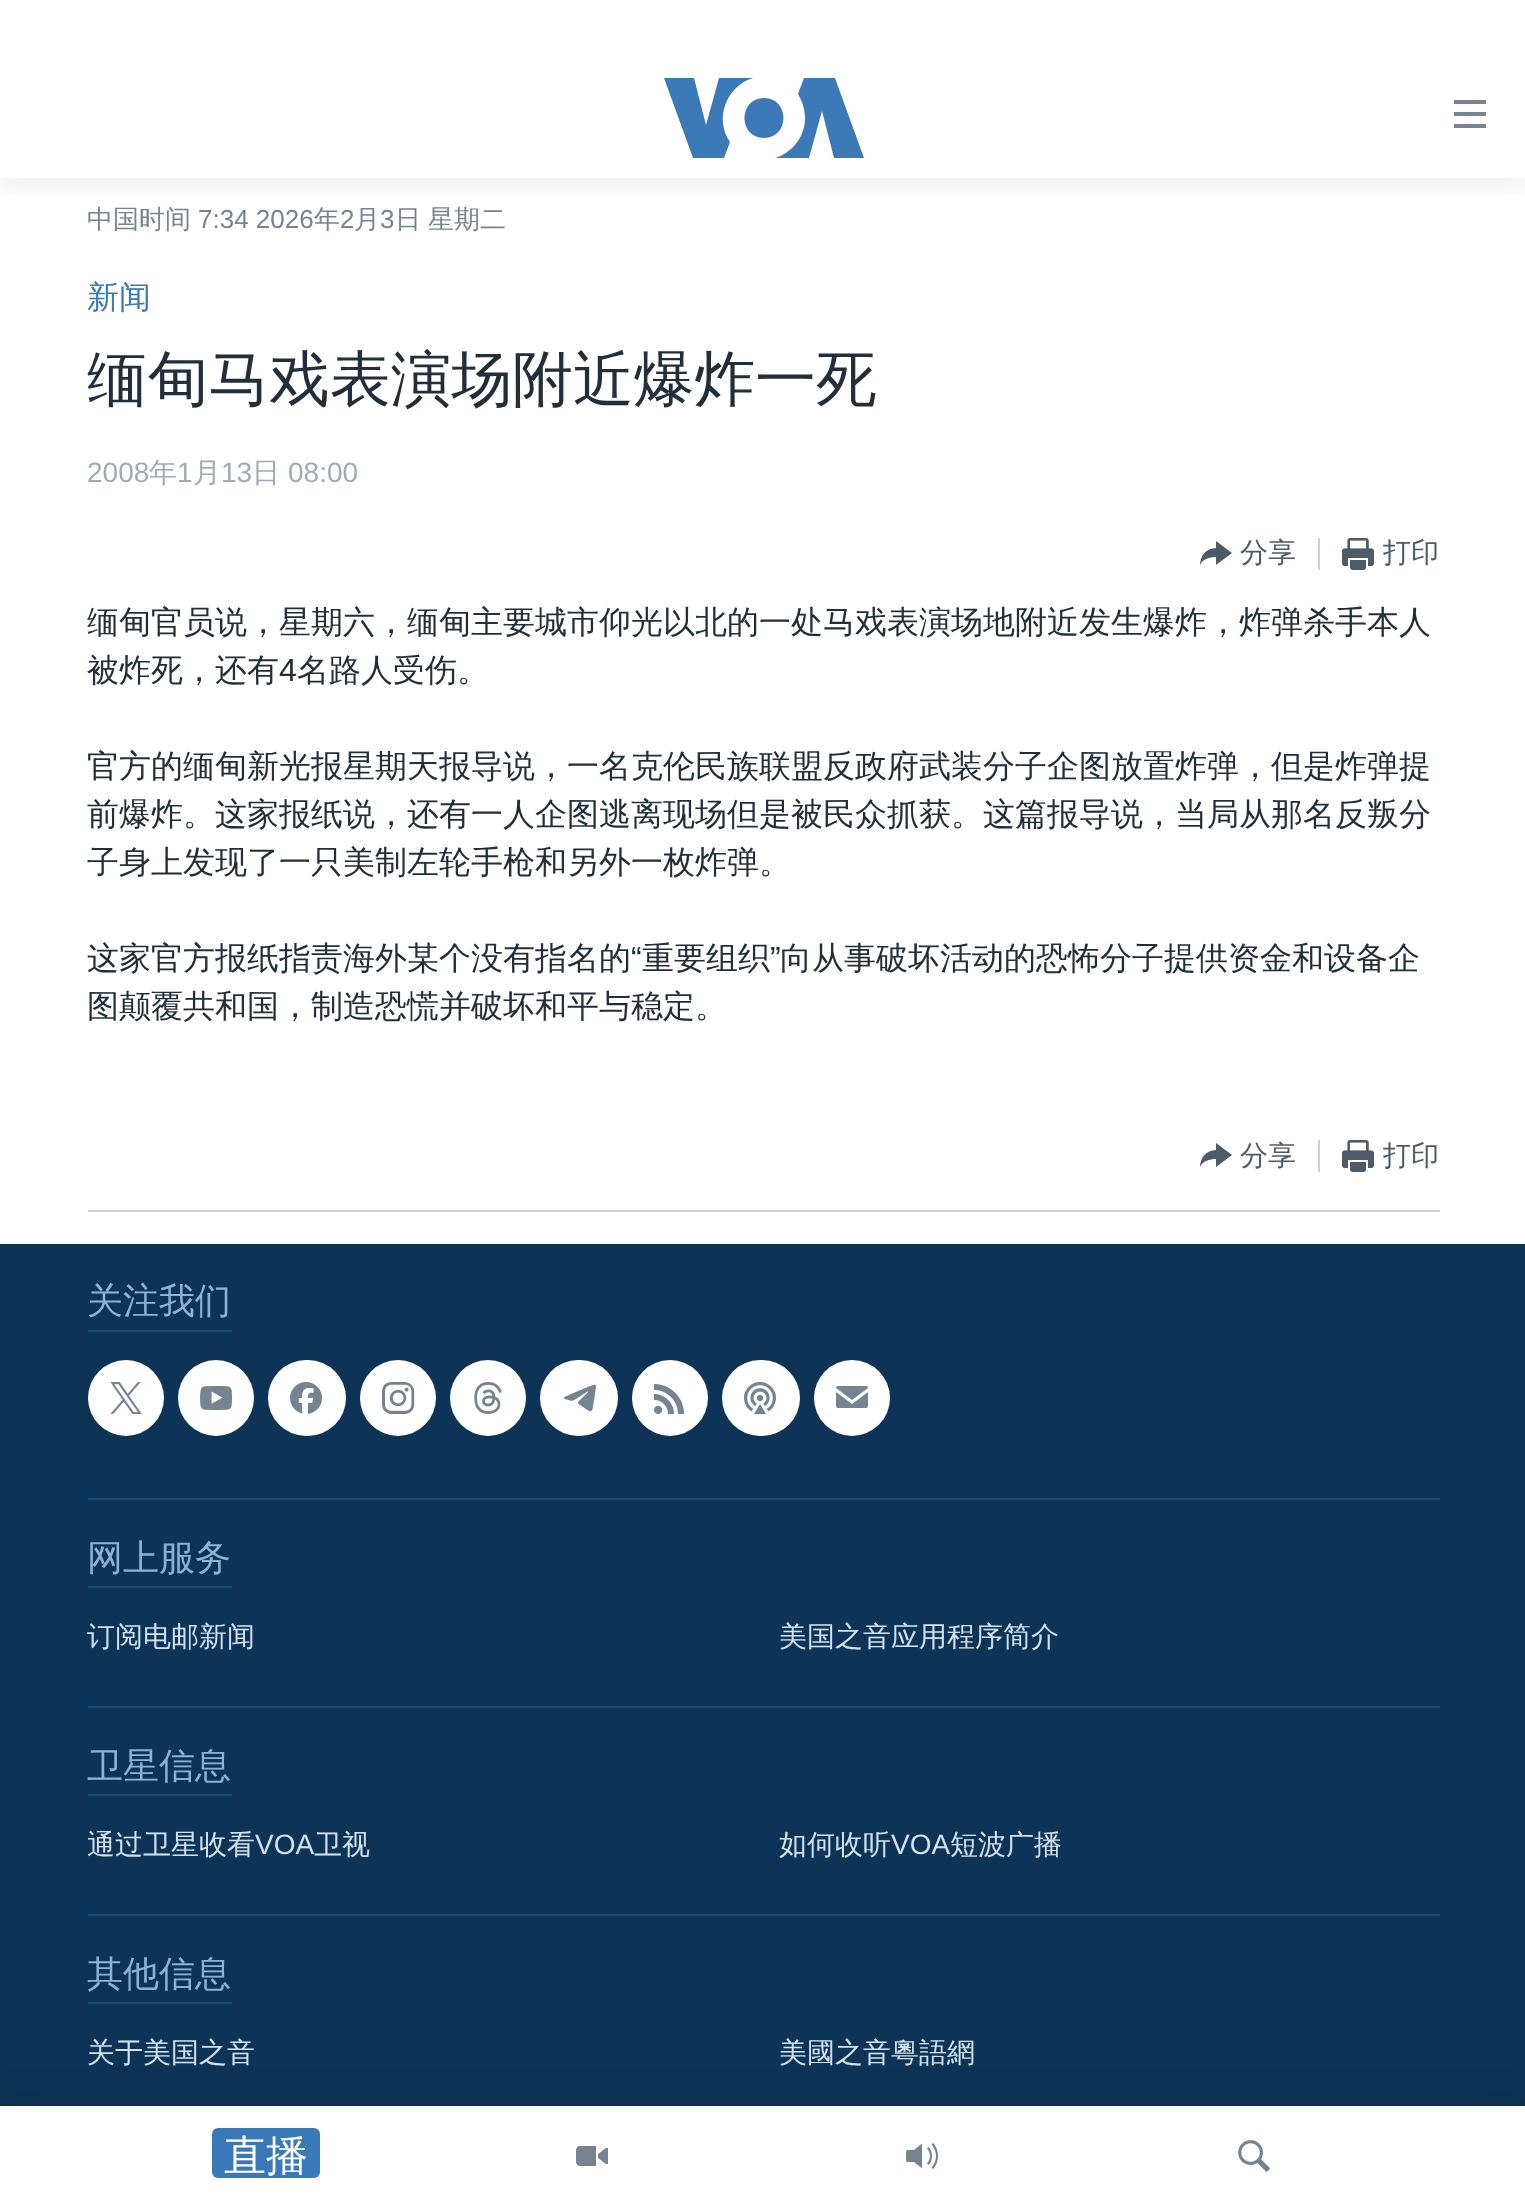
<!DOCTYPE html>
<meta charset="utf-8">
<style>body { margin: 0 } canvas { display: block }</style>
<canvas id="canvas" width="1525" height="2205"></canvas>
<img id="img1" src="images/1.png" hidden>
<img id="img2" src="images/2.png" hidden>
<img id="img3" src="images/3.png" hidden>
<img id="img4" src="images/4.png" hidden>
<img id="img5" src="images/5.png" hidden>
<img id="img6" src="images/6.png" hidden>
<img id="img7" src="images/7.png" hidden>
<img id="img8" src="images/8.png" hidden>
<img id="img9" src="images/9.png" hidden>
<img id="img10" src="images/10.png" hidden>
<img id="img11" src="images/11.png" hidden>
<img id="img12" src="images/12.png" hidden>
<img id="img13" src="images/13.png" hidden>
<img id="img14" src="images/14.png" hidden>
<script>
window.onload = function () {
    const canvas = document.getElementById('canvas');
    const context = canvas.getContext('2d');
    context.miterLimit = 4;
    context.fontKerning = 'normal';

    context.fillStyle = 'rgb(255, 255, 255)';
    context.fillRect(0, 0, 1525, 2205);
    context.save();
    context.beginPath();
    context.rect(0, 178, 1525, 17);
    context.clip();
    context.fillStyle = 'rgba(0, 0, 0, 0.1)';
    context.filter = 'blur(20px)';
    context.beginPath();
    context.rect(0, 52, 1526, 126);
    context.fill();
    context.filter = 'none';
    context.restore();
    context.fillRect(0, 26, 1525, 26);
    context.fillStyle = 'rgb(77, 90, 103)';
    context.beginPath();
    context.moveTo(1200, 565);
    context.bezierCurveTo(1200.5, 555, 1206, 548.5, 1216, 548);
    context.lineTo(1216, 541);
    context.lineTo(1232, 553);
    context.lineTo(1216, 565);
    context.lineTo(1216, 557);
    context.bezierCurveTo(1210, 557, 1202.5, 559, 1200, 565);
    context.closePath();
    context.fill();
    context.fillStyle = 'rgb(203, 209, 214)';
    context.fillRect(1318, 538, 2, 32);
    context.drawImage(document.getElementById('img1'), 1342, 538, 32, 32);
    context.fillRect(88, 1210, 1352, 2);
    context.fillStyle = 'rgb(77, 90, 103)';
    context.beginPath();
    context.moveTo(1200, 1167);
    context.bezierCurveTo(1200.5, 1157, 1206, 1150.5, 1216, 1150);
    context.lineTo(1216, 1143);
    context.lineTo(1232, 1155);
    context.lineTo(1216, 1167);
    context.lineTo(1216, 1159);
    context.bezierCurveTo(1210, 1159, 1202.5, 1161, 1200, 1167);
    context.closePath();
    context.fill();
    context.fillStyle = 'rgb(203, 209, 214)';
    context.fillRect(1318, 1140, 2, 32);
    context.drawImage(document.getElementById('img1'), 1342, 1140, 32, 32);
    context.fillStyle = 'rgb(13, 52, 86)';
    context.fillRect(0, 1244, 1525, 862);
    context.fillStyle = 'rgb(19, 73, 118)';
    context.fillRect(88, 1330, 144, 2);
    context.fillStyle = 'rgb(255, 255, 255)';
    context.beginPath();
    context.arc(126, 1398, 38, 0, 2 * Math.PI);
    context.fill();
    context.drawImage(document.getElementById('img2'), 110, 1382, 32, 32);
    context.beginPath();
    context.arc(216, 1398, 38, 0, 2 * Math.PI);
    context.fill();
    context.drawImage(document.getElementById('img3'), 200, 1386, 32, 24);
    context.beginPath();
    context.roundRect(268, 1360, 78, 76, 38);
    context.fill();
    context.drawImage(document.getElementById('img4'), 290, 1382, 32, 32);
    context.beginPath();
    context.arc(398, 1398, 38, 0, 2 * Math.PI);
    context.fill();
    context.drawImage(document.getElementById('img5'), 382, 1382, 33, 32);
    context.beginPath();
    context.arc(488, 1398, 38, 0, 2 * Math.PI);
    context.fill();
    context.drawImage(document.getElementById('img6'), 474, 1382, 28, 32);
    context.beginPath();
    context.roundRect(540, 1360, 78, 76, 38);
    context.fill();
    context.drawImage(document.getElementById('img7'), 564, 1384, 32, 28);
    context.beginPath();
    context.arc(670, 1398, 38, 0, 2 * Math.PI);
    context.fill();
    context.drawImage(document.getElementById('img8'), 654, 1384, 30, 30);
    context.beginPath();
    context.roundRect(722, 1360, 78, 76, 38);
    context.fill();
    context.drawImage(document.getElementById('img9'), 744, 1382, 32, 32);
    context.beginPath();
    context.arc(852, 1398, 38, 0, 2 * Math.PI);
    context.fill();
    context.drawImage(document.getElementById('img10'), 836, 1386, 32, 22);
    context.fillStyle = 'rgb(19, 73, 118)';
    context.fillRect(88, 1498, 1352, 2);
    context.fillRect(88, 1586, 144, 2);
    context.fillRect(88, 1706, 1352, 2);
    context.fillRect(88, 1794, 144, 2);
    context.fillRect(88, 1914, 1352, 2);
    context.fillRect(88, 2002, 144, 2);
    context.fillStyle = 'rgb(59, 121, 183)';
    context.beginPath();
    context.moveTo(730, 142);
    context.lineTo(724, 158);
    context.lineTo(693, 158);
    context.lineTo(664, 78);
    context.lineTo(694, 78);
    context.lineTo(706, 125);
    context.lineTo(719, 78);
    context.lineTo(753, 78);
    context.bezierCurveTo(726, 86, 714, 119, 730, 142);
    context.closePath();
    context.moveTo(764, 98);
    context.bezierCurveTo(738, 98, 738, 138, 764, 138);
    context.bezierCurveTo(790, 138, 790, 98, 764, 98);
    context.closePath();
    context.moveTo(805, 118);
    context.bezierCurveTo(805, 137, 792, 153, 775, 158);
    context.lineTo(809, 158);
    context.lineTo(822, 111);
    context.lineTo(834, 158);
    context.lineTo(864, 158);
    context.lineTo(835, 78);
    context.lineTo(804, 78);
    context.lineTo(798, 94);
    context.bezierCurveTo(802, 101, 805, 109, 805, 118);
    context.closePath();
    context.fill();
    context.drawImage(document.getElementById('img11'), 1454, 100, 32, 28);
    context.fillStyle = 'rgba(0, 0, 0, 0.1)';
    context.filter = 'blur(20px)';
    context.beginPath();
    context.rect(0, 2106, 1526, 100);
    context.fill();
    context.filter = 'none';
    context.fillStyle = 'rgb(255, 255, 255)';
    context.fillRect(0, 2106, 1525, 99);
    context.fillStyle = 'rgb(58, 121, 183)';
    context.beginPath();
    context.roundRect(212, 2128, 108, 50, 6);
    context.fill();
    context.drawImage(document.getElementById('img12'), 576, 2146, 32, 20);
    context.drawImage(document.getElementById('img13'), 906, 2143, 32, 26);
    context.drawImage(document.getElementById('img14'), 1238, 2140, 32, 32);
    context.font = '500 26px WenQuanYi Zen Hei';
    context.fillStyle = 'rgb(118, 132, 146)';
    context.fillText('中国时间', 87, 228);
    context.font = '26px Liberation Sans';
    context.fillText('7:34 2026', 198, 228);
    context.font = '500 26px WenQuanYi Zen Hei';
    context.fillText('年', 314, 228);
    context.font = '26px Liberation Sans';
    context.fillText('2', 340, 228);
    context.font = '500 26px WenQuanYi Zen Hei';
    context.fillText('月', 354, 228);
    context.font = '26px Liberation Sans';
    context.fillText('3', 380, 228);
    context.font = '500 26px WenQuanYi Zen Hei';
    context.fillText('日', 395, 228);
    context.fillText('星期二', 428, 228);
    context.font = '500 32px WenQuanYi Zen Hei';
    context.fillStyle = 'rgb(58, 121, 183)';
    context.fillText('新闻', 87, 308);
    context.font = '500 60.75px WenQuanYi Zen Hei';
    context.fillStyle = 'rgb(34, 47, 58)';
    context.fillText('缅甸马戏表演场附近爆炸一死', 87, 400);
    context.font = '28px Liberation Sans';
    context.fillStyle = 'rgb(161, 170, 180)';
    context.fillText('2008', 87, 482);
    context.font = '500 28px WenQuanYi Zen Hei';
    context.fillText('年', 149, 482);
    context.font = '28px Liberation Sans';
    context.fillText('1', 177, 482);
    context.font = '500 28px WenQuanYi Zen Hei';
    context.fillText('月', 193, 482);
    context.font = '28px Liberation Sans';
    context.fillText('13', 221, 482);
    context.font = '500 28px WenQuanYi Zen Hei';
    context.fillText('日', 252, 482);
    context.font = '28px Liberation Sans';
    context.fillText('08:00', 288, 482);
    context.font = '500 28px WenQuanYi Zen Hei';
    context.fillStyle = 'rgb(77, 90, 103)';
    context.fillText('分享', 1240, 562);
    context.fillText('打印', 1383, 562);
    context.font = '500 32px WenQuanYi Zen Hei';
    context.fillStyle = 'rgb(34, 47, 58)';
    context.fillText('缅甸官员说，星期六，缅甸主要城市仰光以北的一处马戏表演场地附近发生爆炸，炸弹杀手本人', 87, 633);
    context.fillText('被炸死，还有', 87, 681);
    context.font = '32px Liberation Sans';
    context.fillText('4', 279, 681);
    context.font = '500 32px WenQuanYi Zen Hei';
    context.fillText('名路人受伤。', 297, 681);
    context.fillText('官方的缅甸新光报星期天报导说，一名克伦民族联盟反政府武装分子企图放置炸弹，但是炸弹提', 87, 777);
    context.fillText('前爆炸。这家报纸说，还有一人企图逃离现场但是被民众抓获。这篇报导说，当局从那名反叛分', 87, 825);
    context.fillText('子身上发现了一只美制左轮手枪和另外一枚炸弹。', 87, 873);
    context.fillText('这家官方报纸指责海外某个没有指名的', 87, 969);
    context.font = '32px Liberation Sans';
    context.fillText('“', 631, 969);
    context.font = '500 32px WenQuanYi Zen Hei';
    context.fillText('重要组织', 642, 969);
    context.font = '32px Liberation Sans';
    context.fillText('”', 770, 969);
    context.font = '500 32px WenQuanYi Zen Hei';
    context.fillText('向从事破坏活动的恐怖分子提供资金和设备企', 780, 969);
    context.fillText('图颠覆共和国，制造恐慌并破坏和平与稳定。', 87, 1017);
    context.font = '500 28px WenQuanYi Zen Hei';
    context.fillStyle = 'rgb(77, 90, 103)';
    context.fillText('分享', 1240, 1165);
    context.fillText('打印', 1383, 1165);
    context.font = '500 36px WenQuanYi Zen Hei';
    context.fillStyle = 'rgb(141, 179, 212)';
    context.fillText('关注我们', 87, 1313);
    context.fillText('网上服务', 87, 1570);
    context.font = '500 28px WenQuanYi Zen Hei';
    context.fillStyle = 'rgb(209, 225, 238)';
    context.fillText('订阅电邮新闻', 87, 1646);
    context.fillText('美国之音应用程序简介', 779, 1646);
    context.font = '500 36px WenQuanYi Zen Hei';
    context.fillStyle = 'rgb(141, 179, 212)';
    context.fillText('卫星信息', 87, 1778);
    context.font = '500 28px WenQuanYi Zen Hei';
    context.fillStyle = 'rgb(209, 225, 238)';
    context.fillText('通过卫星收看', 87, 1854);
    context.font = '28px Liberation Sans';
    context.fillText('VOA', 255, 1854);
    context.font = '500 28px WenQuanYi Zen Hei';
    context.fillText('卫视', 314, 1854);
    context.fillText('如何收听', 779, 1854);
    context.font = '28px Liberation Sans';
    context.fillText('VOA', 891, 1854);
    context.font = '500 28px WenQuanYi Zen Hei';
    context.fillText('短波广播', 950, 1854);
    context.font = '500 36px WenQuanYi Zen Hei';
    context.fillStyle = 'rgb(141, 179, 212)';
    context.fillText('其他信息', 87, 1986);
    context.font = '500 28px WenQuanYi Zen Hei';
    context.fillStyle = 'rgb(209, 225, 238)';
    context.fillText('关于美国之音', 87, 2062);
    context.fillText('美國之音粵語網', 779, 2062);
    context.font = '500 42px WenQuanYi Zen Hei';
    context.fillStyle = 'rgb(255, 255, 255)';
    context.fillText('直播', 224, 2170);
};
</script>
